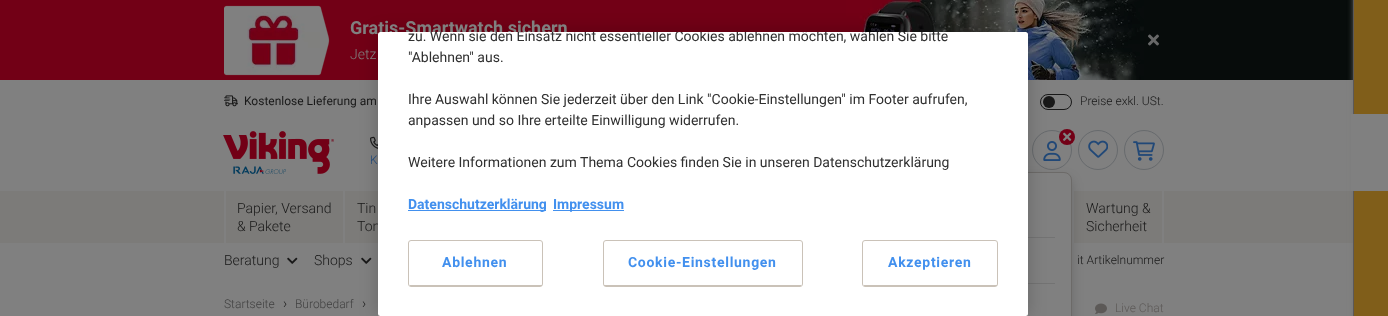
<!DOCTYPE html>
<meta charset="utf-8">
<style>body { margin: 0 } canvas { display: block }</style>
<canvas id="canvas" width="1388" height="316"></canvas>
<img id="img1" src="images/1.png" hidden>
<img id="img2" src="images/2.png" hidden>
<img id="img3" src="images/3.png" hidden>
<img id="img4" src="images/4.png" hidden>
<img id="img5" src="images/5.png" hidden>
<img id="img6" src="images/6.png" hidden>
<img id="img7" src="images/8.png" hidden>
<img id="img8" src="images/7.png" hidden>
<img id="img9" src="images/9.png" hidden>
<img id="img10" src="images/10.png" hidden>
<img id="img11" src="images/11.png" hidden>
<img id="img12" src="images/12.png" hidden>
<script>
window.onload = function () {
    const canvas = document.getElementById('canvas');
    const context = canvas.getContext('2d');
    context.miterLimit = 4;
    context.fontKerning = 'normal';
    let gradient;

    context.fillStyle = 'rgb(128, 128, 128)';
    context.fillRect(0, 0, 1388, 316);
    context.fillStyle = 'rgb(114, 0, 22)';
    context.fillRect(0, 0, 214, 80);
    context.fillStyle = 'rgb(7, 12, 11)';
    context.fillRect(1174, 0, 179, 80);
    gradient = context.createLinearGradient(279, 225, 1109, -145);
    gradient.addColorStop(0, 'rgb(114, 0, 22)');
    gradient.addColorStop(0.67, 'rgb(114, 0, 22)');
    gradient.addColorStop(0.67, 'rgb(7, 12, 11)');
    gradient.addColorStop(1, 'rgb(7, 12, 11)');
    context.fillStyle = gradient;
    context.fillRect(214, 0, 960, 80);
    context.drawImage(document.getElementById('img1'), 224, 5, 106, 71);
    context.drawImage(document.getElementById('img2'), 846, 0, 298, 80);
    context.drawImage(document.getElementById('img3'), 1148, 34, 11, 12);
    context.drawImage(document.getElementById('img4'), 224, 95, 14, 12);
    context.beginPath();
    context.roundRect(1040.5, 94.5, 31, 15, 7.5);
    context.strokeStyle = 'rgb(24, 24, 24)';
    context.stroke();
    context.fillStyle = 'rgb(24, 24, 24)';
    context.beginPath();
    context.arc(1049, 102, 6, 0, 2 * Math.PI);
    context.fill();
    context.fillStyle = 'rgb(124, 123, 121)';
    context.fillRect(0, 191, 1353, 52);
    context.fillStyle = 'rgb(116, 115, 113)';
    context.filter = 'blur(3px)';
    context.beginPath();
    context.roundRect(1354, -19, 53, 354, 10);
    context.fill();
    context.filter = 'none';
    context.fillStyle = 'rgb(128, 94, 26)';
    context.fillRect(1354, 0, 34, 316);
    context.fillStyle = 'rgb(92, 89, 87)';
    context.beginPath();
    context.moveTo(1363, -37);
    context.lineTo(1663, -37);
    context.lineTo(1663, 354);
    context.lineTo(1363, 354);
    context.bezierCurveTo(1357, 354, 1353, 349, 1353, 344);
    context.lineTo(1353, -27);
    context.bezierCurveTo(1353, -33, 1357, -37, 1363, -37);
    context.closePath();
    context.moveTo(1363, -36);
    context.lineTo(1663, -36);
    context.lineTo(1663, 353);
    context.lineTo(1363, 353);
    context.bezierCurveTo(1358, 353, 1354, 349, 1354, 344);
    context.lineTo(1354, -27);
    context.bezierCurveTo(1354, -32, 1358, -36, 1363, -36);
    context.closePath();
    context.fill('evenodd');
    context.fillStyle = 'rgb(128, 128, 128)';
    context.fillRect(1351, 114, 37, 77);
    context.drawImage(document.getElementById('img5'), 223, 131, 111, 43);
    context.drawImage(document.getElementById('img6'), 370, 136, 8, 13);
    context.beginPath();
    context.arc(1052, 150, 19.5, 0, 2 * Math.PI);
    context.strokeStyle = 'rgb(103, 106, 109)';
    context.stroke();
    context.drawImage(document.getElementById('img7'), 1043, 141, 18, 20);
    context.fillStyle = 'rgb(114, 0, 22)';
    context.beginPath();
    context.arc(1067, 137, 8, 0, 2 * Math.PI);
    context.fill();
    context.drawImage(document.getElementById('img8'), 1063, 132, 9, 9);
    context.beginPath();
    context.arc(1098, 150, 19.5, 0, 2 * Math.PI);
    context.stroke();
    context.fillStyle = 'rgb(128, 128, 128)';
    context.fillRect(1072, 191, 2, 52);
    context.fillStyle = 'rgba(0, 0, 0, 0.17)';
    context.filter = 'blur(6px)';
    context.beginPath();
    context.roundRect(792, 178, 280, 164, 8);
    context.fill();
    context.filter = 'none';
    context.fillStyle = 'rgb(128, 128, 128)';
    context.beginPath();
    context.roundRect(792.5, 172.5, 279, 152, 7.5);
    context.fill();
    context.strokeStyle = 'rgb(108, 106, 104)';
    context.stroke();
    context.fillStyle = 'rgb(115, 115, 115)';
    context.fillRect(1028, 237, 27, 1);
    context.fillRect(1028, 283, 27, 1);
    context.drawImage(document.getElementById('img9'), 1088, 140, 20, 18);
    context.beginPath();
    context.arc(1144, 150, 19.5, 0, 2 * Math.PI);
    context.strokeStyle = 'rgb(103, 106, 109)';
    context.stroke();
    context.drawImage(document.getElementById('img10'), 1133, 141, 22, 20);
    context.fillStyle = 'rgb(128, 128, 128)';
    context.fillRect(343, 191, 2, 52);
    context.fillRect(224, 191, 2, 52);
    context.fillRect(1162, 191, 2, 52);
    context.drawImage(document.getElementById('img11'), 287, 257, 11, 7);
    context.drawImage(document.getElementById('img11'), 361, 257, 11, 7);
    context.drawImage(document.getElementById('img12'), 1095, 303, 12, 11);
    context.fillStyle = 'rgba(0, 0, 0, 0.2)';
    context.filter = 'blur(9px)';
    context.beginPath();
    context.roundRect(378, 32, 650, 284, 2.5);
    context.fill();
    context.filter = 'none';
    context.font = 'bold 18px Roboto';
    context.fillStyle = 'rgb(128, 128, 128)';
    context.fillText('Gratis-Smartwatch sichern', 350, 34);
    context.font = '300 14px Roboto';
    context.fillText('Jetz', 350, 59);
    context.font = '12px Roboto';
    context.fillStyle = 'rgb(24, 24, 24)';
    context.fillText('Kostenlose Lieferung am', 244, 105);
    context.font = '300 12px Roboto';
    context.fillText('Preise exkl. USt.', 1080, 105);
    context.fillStyle = 'rgb(33, 72, 119)';
    context.fillText('K', 370, 164);
    context.font = '300 14px Roboto';
    context.fillStyle = 'rgb(24, 24, 24)';
    context.fillText('Papier, Versand', 237, 213);
    context.fillText('& Pakete', 237, 231);
    context.fillText('Tin', 357, 213);
    context.fillText('Ton', 357, 231);
    context.fillText('Wartung &', 1086, 213);
    context.fillText('Sicherheit', 1086, 231);
    context.fillText('Beratung', 224, 265);
    context.fillText('Shops', 314, 265);
    context.font = '300 12px Roboto';
    context.fillText('it Artikelnummer', 1077, 264);
    context.fillStyle = 'rgb(64, 64, 64)';
    context.fillText('Startseite', 224, 308);
    context.font = '300 14px Roboto';
    context.fillStyle = 'rgb(24, 24, 24)';
    context.fillText('›', 283, 308);
    context.font = '300 12px Roboto';
    context.fillStyle = 'rgb(64, 64, 64)';
    context.fillText('Bürobedarf', 295, 308);
    context.font = '300 14px Roboto';
    context.fillStyle = 'rgb(24, 24, 24)';
    context.fillText('›', 362, 308);
    context.font = '300 12px Roboto';
    context.fillStyle = 'rgb(92, 89, 87)';
    context.fillText('Live Chat', 1115, 312);
    context.fillStyle = 'rgb(255, 255, 255)';
    context.beginPath();
    context.roundRect(378, 32, 650, 284, 2.5);
    context.fill();
    context.save();
    context.beginPath();
    context.roundRect(378, 32, 650, 284, 2.5);
    context.clip();
    context.font = '14px Roboto';
    context.fillStyle = 'rgb(48, 48, 48)';
    context.fillText('zu. Wenn sie den Einsatz nicht essentieller Cookies ablehnen möchten, wählen Sie bitte', 408, 41);
    context.restore();
    context.font = '14px Roboto';
    context.fillStyle = 'rgb(48, 48, 48)';
    context.fillText('"Ablehnen" aus.', 408, 62);
    context.fillText('Ihre Auswahl können Sie jederzeit über den Link "Cookie-Einstellungen" im Footer aufrufen,', 408, 104);
    context.fillText('anpassen und so Ihre erteilte Einwilligung widerrufen.', 408, 125);
    context.fillText('Weitere Informationen zum Thema Cookies finden Sie in unseren Datenschutzerklärung', 408, 167);
    context.fillStyle = 'rgb(66, 144, 238)';
    context.fillRect(408, 210, 138, 1);
    context.font = 'bold 14px Roboto';
    context.fillText('Datenschutzerklärung', 408, 209);
    context.fillRect(553, 210, 71, 1);
    context.fillText('Impressum', 553, 209);
    context.beginPath();
    context.roundRect(408.5, 240.5, 134, 46, 2.5);
    context.strokeStyle = 'rgb(202, 194, 184)';
    context.stroke();
    context.fillStyle = 'rgb(202, 194, 184)';
    context.fillRect(410, 285, 132, 1);
    context.letterSpacing = '0.7px';
    context.fillStyle = 'rgb(66, 144, 238)';
    context.fillText('Ablehnen', 442, 267);
    context.beginPath();
    context.roundRect(862.5, 240.5, 135, 46, 2.5);
    context.stroke();
    context.fillStyle = 'rgb(202, 194, 184)';
    context.fillRect(864, 285, 133, 1);
    context.fillStyle = 'rgb(66, 144, 238)';
    context.fillText('Akzeptieren', 888, 267);
    context.beginPath();
    context.roundRect(603.5, 240.5, 199, 46, 2.5);
    context.stroke();
    context.fillStyle = 'rgb(202, 194, 184)';
    context.fillRect(604, 285, 197, 1);
    context.fillStyle = 'rgb(66, 144, 238)';
    context.fillText('Cookie-Einstellungen', 628, 267);
};
</script>
